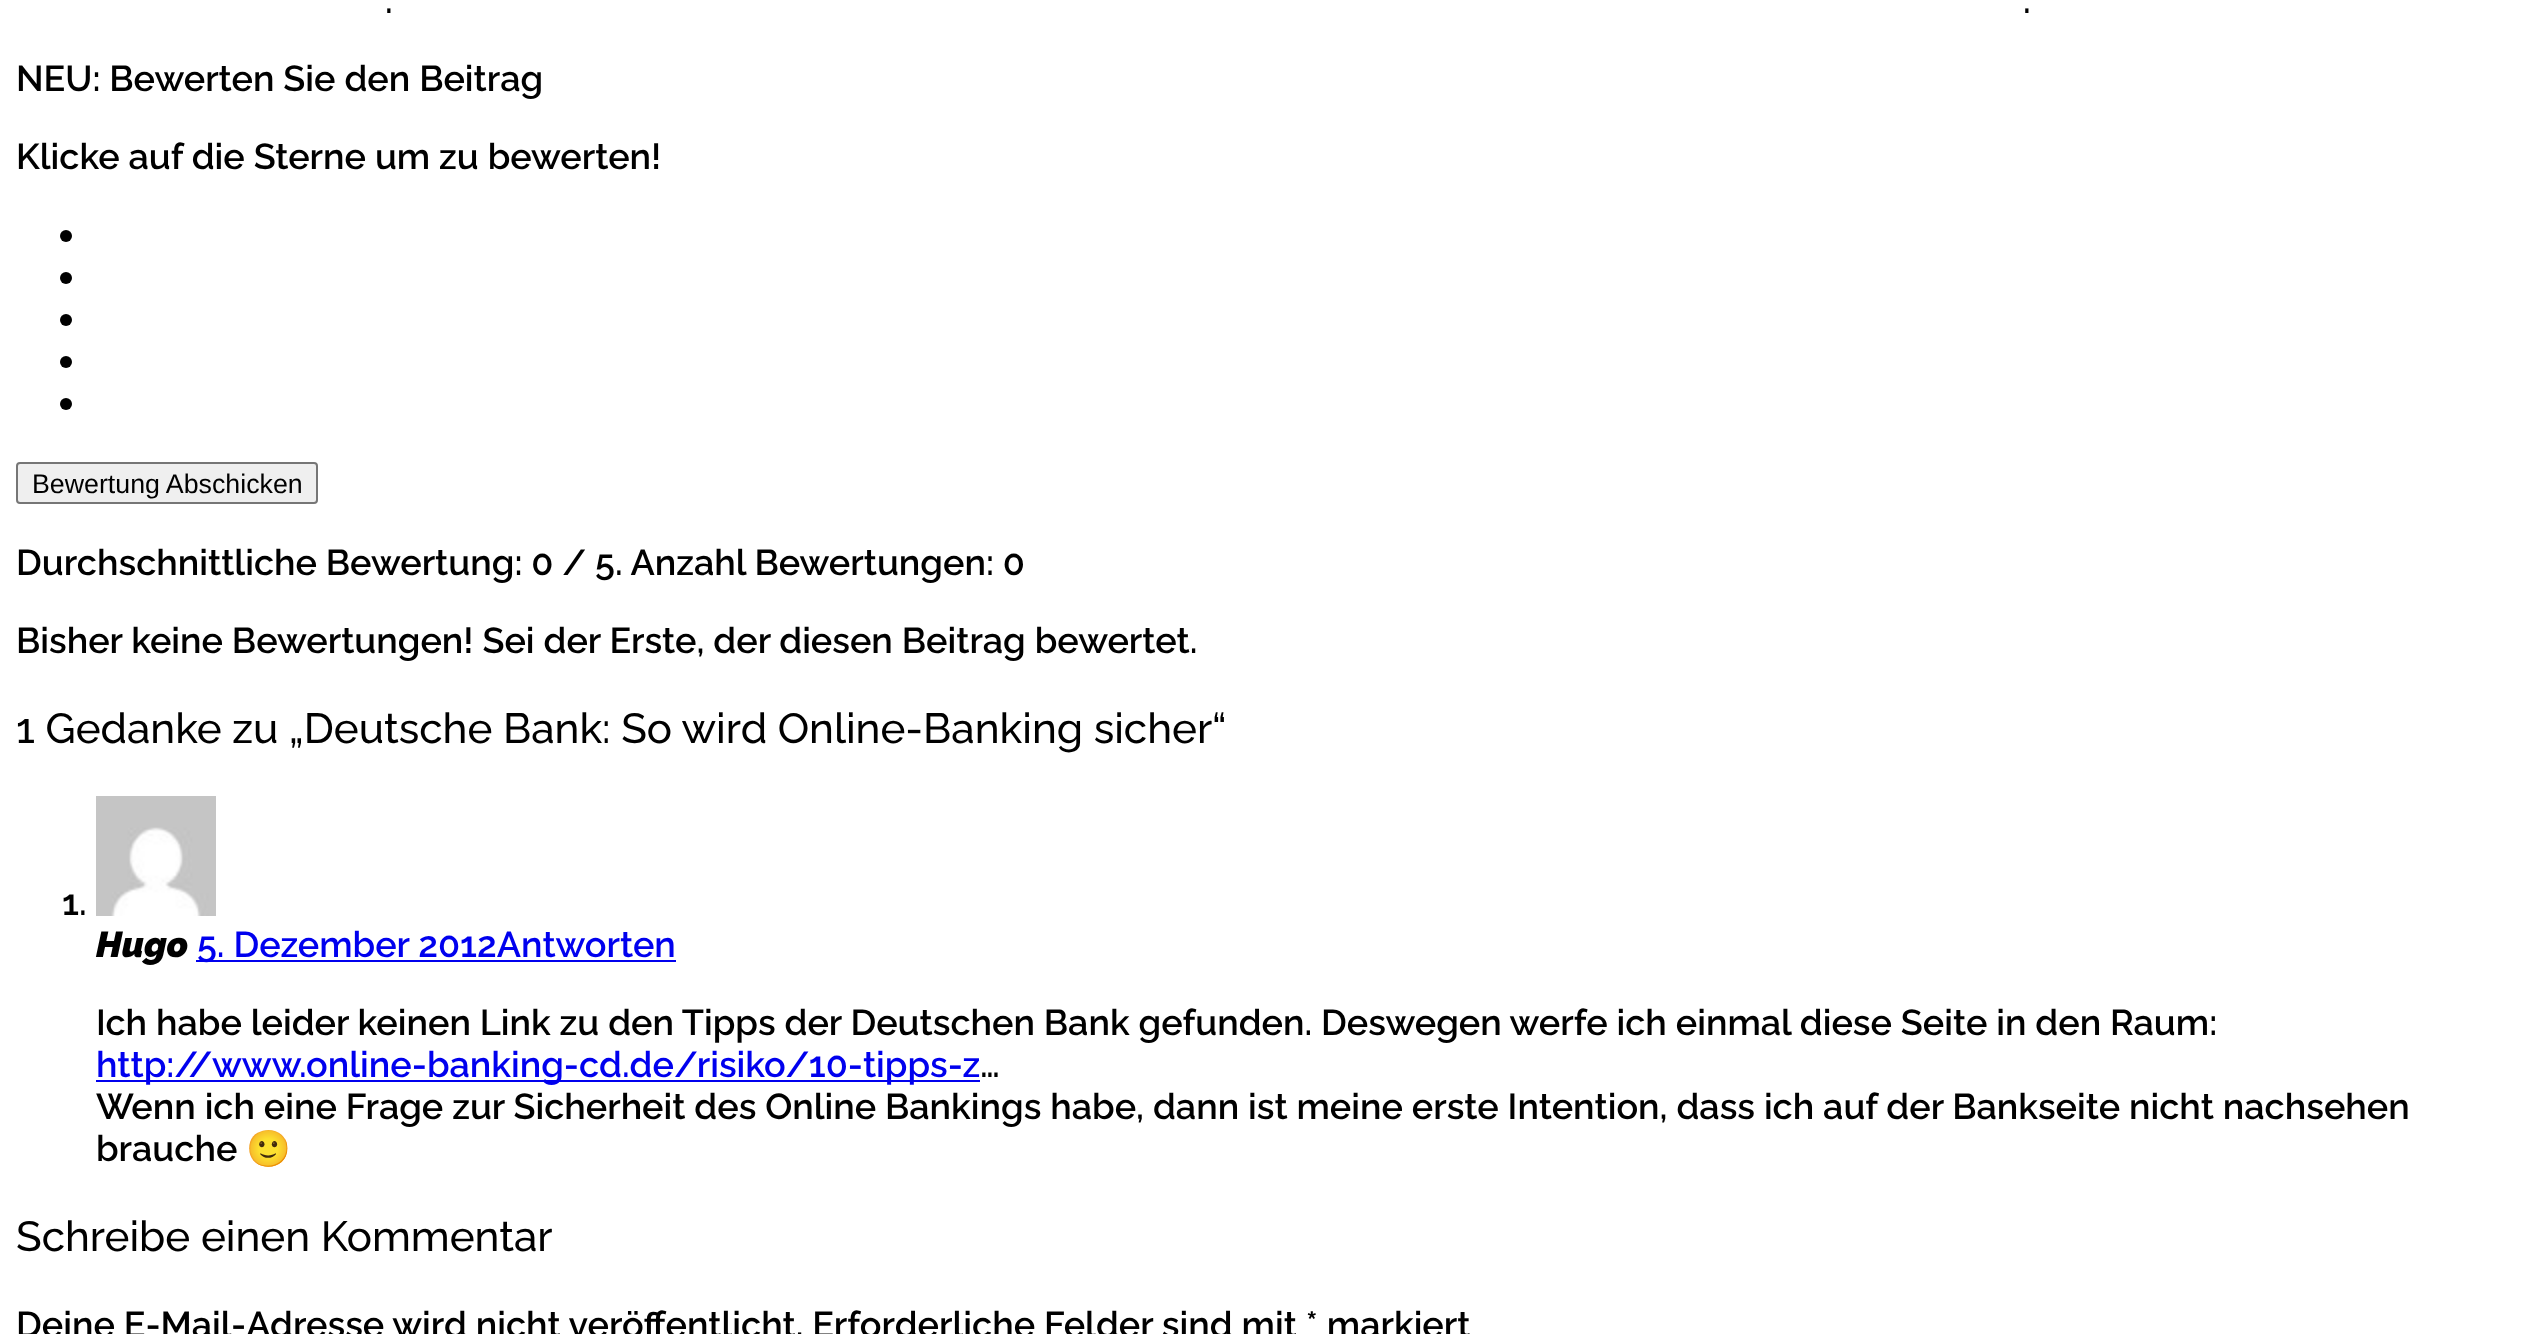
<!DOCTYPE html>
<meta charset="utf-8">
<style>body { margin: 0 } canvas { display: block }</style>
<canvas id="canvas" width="2547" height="1334"></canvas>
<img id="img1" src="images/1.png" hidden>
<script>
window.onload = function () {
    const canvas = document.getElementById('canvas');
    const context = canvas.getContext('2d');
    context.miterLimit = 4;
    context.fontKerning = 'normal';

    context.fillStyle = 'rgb(255, 255, 255)';
    context.fillRect(0, 0, 2547, 1334);
    context.fillStyle = 'rgb(0, 0, 0)';
    context.beginPath();
    context.arc(66, 236, 6, 0, 2 * Math.PI);
    context.fill();
    context.beginPath();
    context.arc(66, 278, 6, 0, 2 * Math.PI);
    context.fill();
    context.beginPath();
    context.arc(66, 320, 6, 0, 2 * Math.PI);
    context.fill();
    context.beginPath();
    context.arc(66, 362, 6, 0, 2 * Math.PI);
    context.fill();
    context.beginPath();
    context.arc(66, 404, 6, 0, 2 * Math.PI);
    context.fill();
    context.fillStyle = 'rgb(239, 239, 239)';
    context.beginPath();
    context.roundRect(17, 463, 300, 40, 3);
    context.fill();
    context.strokeStyle = 'rgb(118, 118, 118)';
    context.lineWidth = 2;
    context.stroke();
    context.drawImage(document.getElementById('img1'), 96, 796, 120, 120);
    context.fillStyle = 'rgb(0, 0, 238)';
    context.fillRect(196, 960, 480, 2);
    context.fillRect(96, 1080, 884, 2);
    context.font = '600 36px Raleway';
    context.fillStyle = 'rgb(0, 0, 0)';
    context.fillText('.', 385, 13);
    context.fillText('.', 2023, 13);
    context.fillText('NEU: Bewerten Sie den Beitrag', 16, 91);
    context.fillText('Klicke auf die Sterne um zu bewerten!', 16, 169);
    context.font = '26.75px Liberation Sans';
    context.fillText('Bewertung Abschicken', 32, 493);
    context.font = '600 36px Raleway';
    context.fillText('Durchschnittliche Bewertung: 0 / 5. Anzahl Bewertungen: 0', 16, 575);
    context.fillText('Bisher keine Bewertungen! Sei der Erste, der diesen Beitrag bewertet.', 16, 653);
    context.font = '500 42.1px Raleway';
    context.fillText('1 Gedanke zu „Deutsche Bank: So wird Online-Banking sicher', 16, 743);
    context.fillText('“', 1212, 743);
    context.font = '600 36px Raleway';
    context.fillText('1.', 62, 915);
    context.font = 'italic 900 36px Raleway';
    context.fillText('Hugo', 96, 957);
    context.font = '600 36px Raleway';
    context.fillStyle = 'rgb(0, 0, 238)';
    context.fillText('5. Dezember 2012Antworten', 197, 957);
    context.fillStyle = 'rgb(0, 0, 0)';
    context.fillText('Ich habe leider keinen Link zu den Tipps der Deutschen Bank gefunden. Deswegen werfe ich einmal diese Seite in den Raum:', 96, 1035);
    context.fillStyle = 'rgb(0, 0, 238)';
    context.fillText('http://www.online-banking-cd.de/risiko/10-tipps-z', 96, 1077);
    context.fillStyle = 'rgb(0, 0, 0)';
    context.fillText('…', 980, 1077);
    context.fillText('Wenn ich eine Frage zur Sicherheit des Online Bankings habe, dann ist meine erste Intention, dass ich auf der Bankseite nicht nachsehen', 96, 1119);
    context.fillText('brauche', 96, 1161);
    context.font = 'bold 36px Noto Color Emoji';
    context.fillText('🙂', 246, 1161);
    context.font = '500 42.1px Raleway';
    context.fillText('Schreibe einen Kommentar', 16, 1251);
    context.font = '600 36px Raleway';
    context.fillText('Deine E-Mail-Adresse wird nicht veröffentlicht. Erforderliche Felder sind mit * markiert', 16, 1337);
};
</script>
